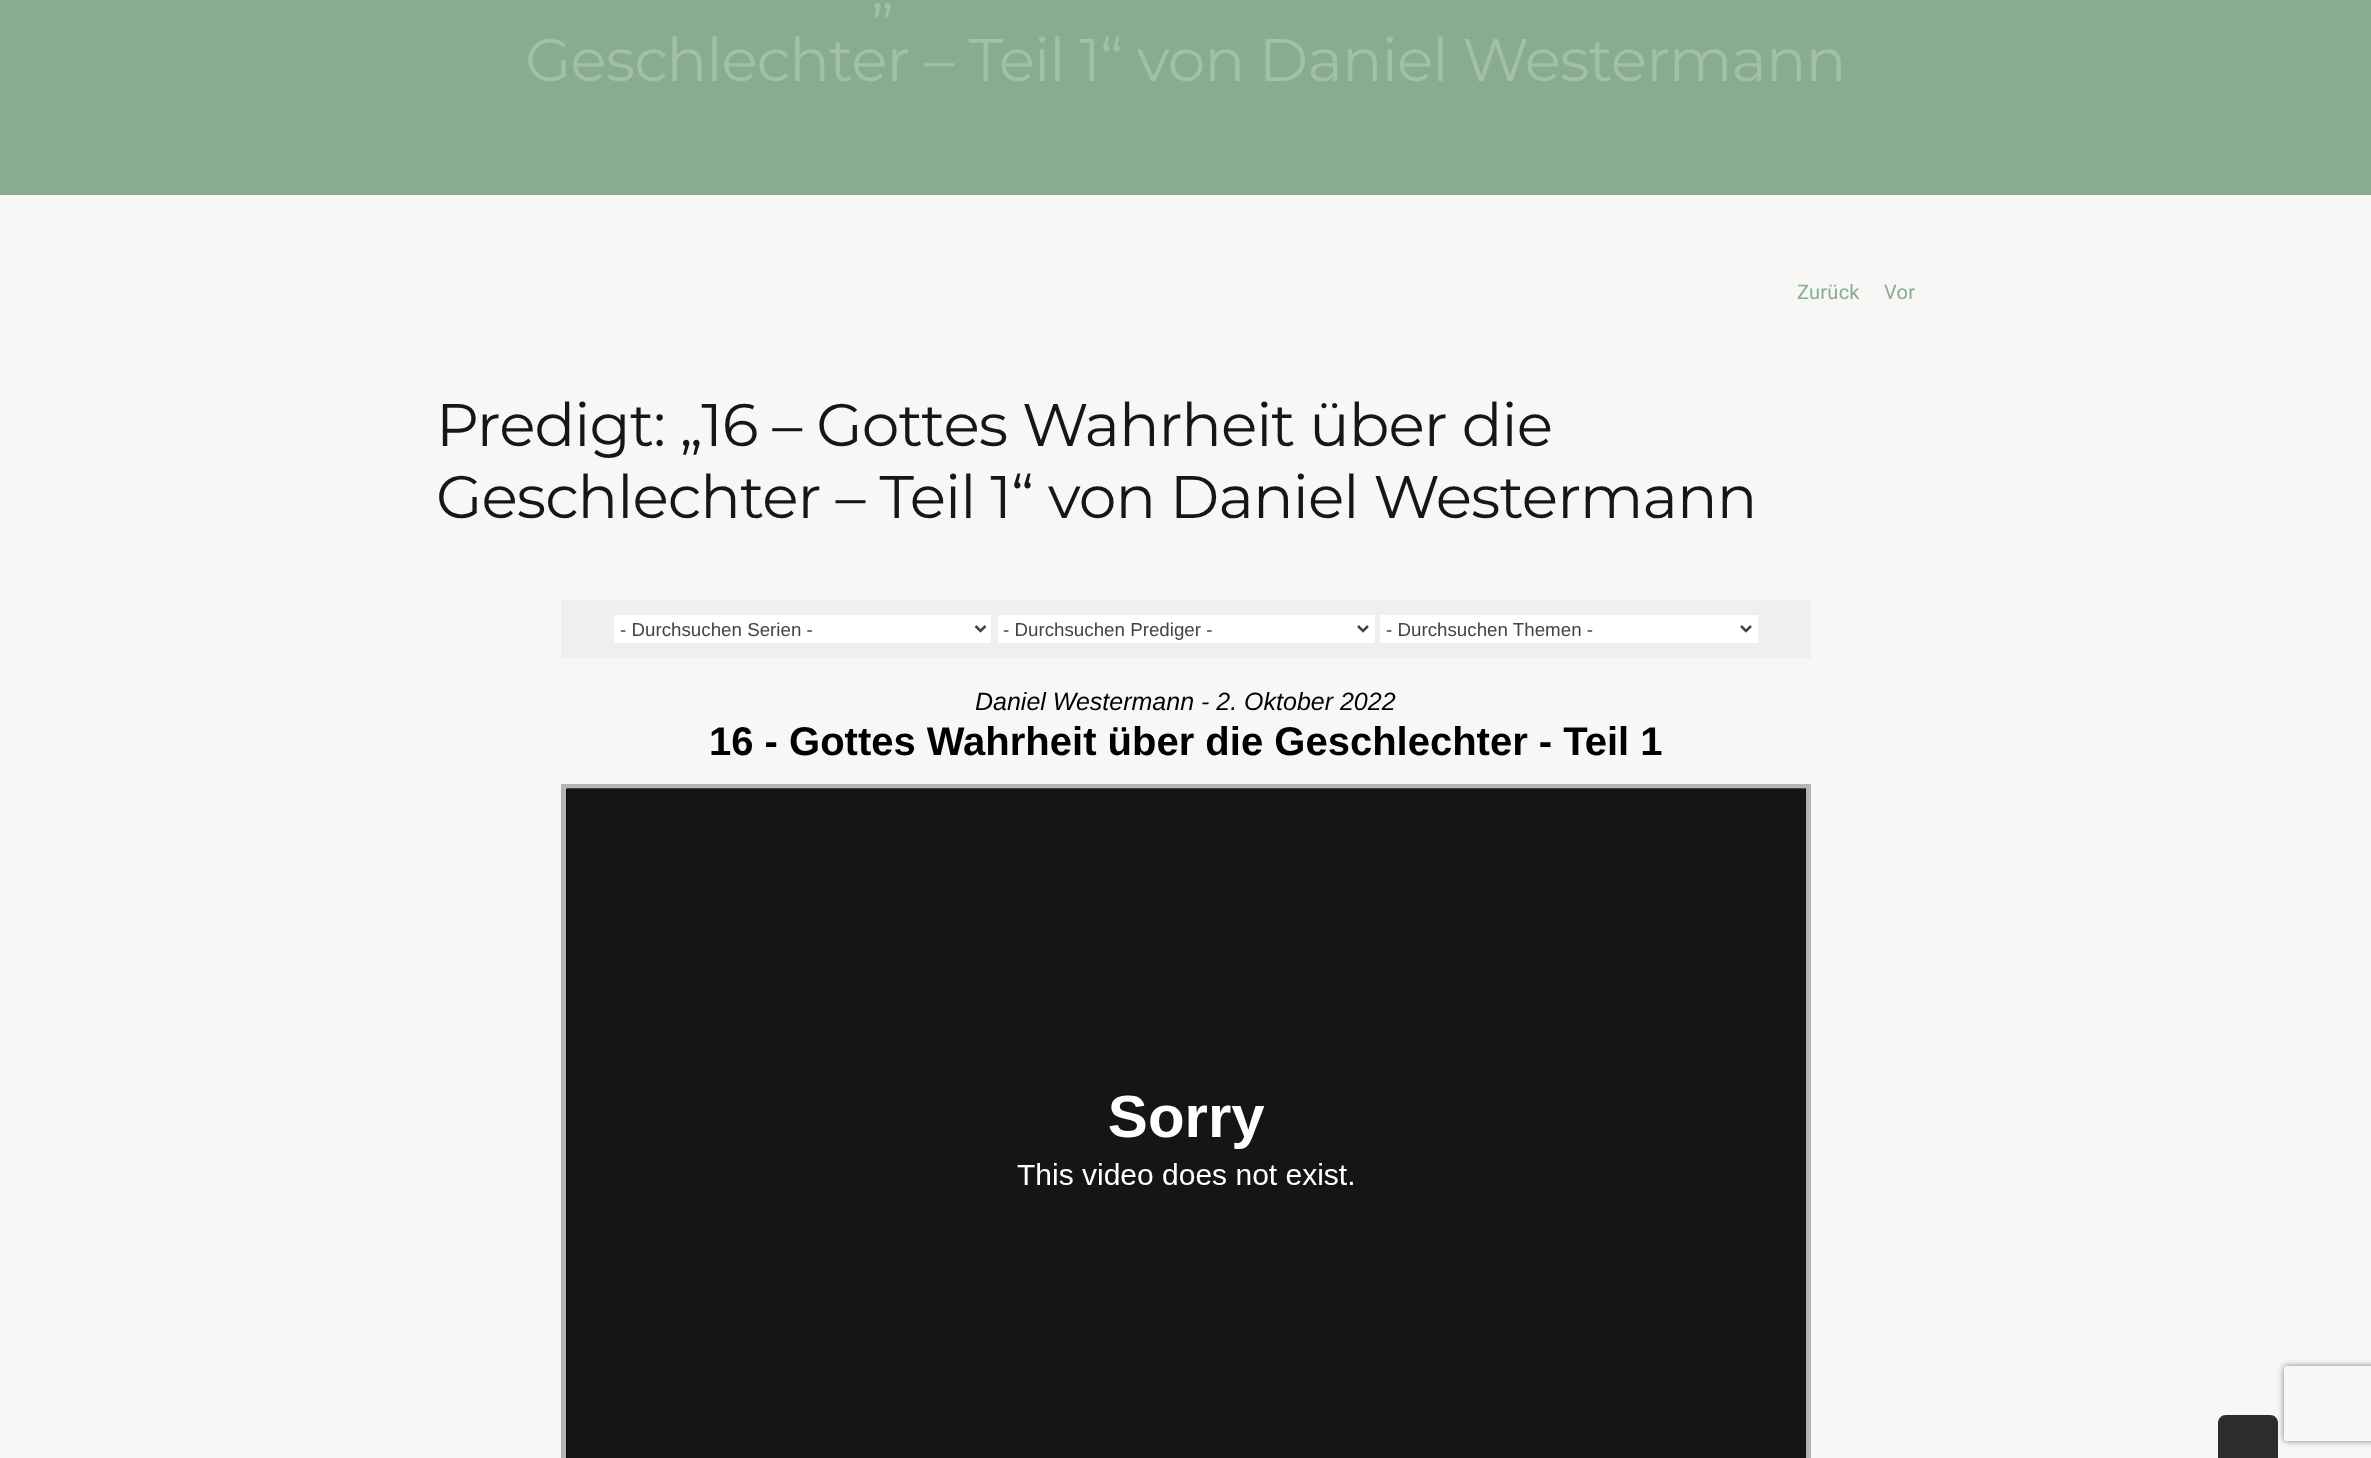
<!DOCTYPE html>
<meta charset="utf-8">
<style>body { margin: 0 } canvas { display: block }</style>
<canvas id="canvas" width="2371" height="1458"></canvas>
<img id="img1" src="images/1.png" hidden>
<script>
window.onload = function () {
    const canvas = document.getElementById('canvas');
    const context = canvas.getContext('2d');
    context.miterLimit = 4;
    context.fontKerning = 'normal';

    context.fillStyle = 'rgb(247, 247, 245)';
    context.fillRect(0, 0, 2371, 1458);
    context.fillStyle = 'rgb(136, 173, 142)';
    context.fillRect(0, 0, 2371, 195);
    context.fillStyle = 'rgb(242, 243, 245)';
    context.fillRect(436, 270, 1500, 1);
    context.fillRect(436, 314, 1500, 1);
    context.fillStyle = 'rgb(239, 239, 239)';
    context.fillRect(561, 600, 1250, 58);
    context.fillStyle = 'rgb(255, 255, 255)';
    context.fillRect(614, 615, 377, 28);
    context.beginPath();
    context.moveTo(975.5, 626);
    context.lineTo(980.5, 631);
    context.lineTo(985.5, 626);
    context.strokeStyle = 'rgb(68, 68, 68)';
    context.lineWidth = 2.5;
    context.stroke();
    context.fillRect(998, 615, 377, 28);
    context.beginPath();
    context.moveTo(1358, 626);
    context.lineTo(1363, 631);
    context.lineTo(1368, 626);
    context.stroke();
    context.fillRect(1380, 615, 378, 28);
    context.beginPath();
    context.moveTo(1741, 626);
    context.lineTo(1746, 631);
    context.lineTo(1751, 626);
    context.stroke();
    context.fillStyle = 'rgb(182, 181, 181)';
    context.fillRect(561, 784, 1250, 674);
    context.fillStyle = 'rgb(0, 0, 0)';
    context.fillRect(566, 789, 1, 669);
    context.drawImage(document.getElementById('img1'), 566, 788, 1241, 670);
    context.save();
    context.beginPath();
    context.moveTo(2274, 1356);
    context.lineTo(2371, 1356);
    context.lineTo(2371, 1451);
    context.lineTo(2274, 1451);
    context.closePath();
    context.moveTo(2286.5, 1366);
    context.lineTo(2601.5, 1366);
    context.bezierCurveTo(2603, 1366, 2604, 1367, 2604, 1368.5);
    context.lineTo(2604, 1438.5);
    context.bezierCurveTo(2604, 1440, 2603, 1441, 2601.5, 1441);
    context.lineTo(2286.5, 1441);
    context.bezierCurveTo(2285, 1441, 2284, 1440, 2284, 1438.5);
    context.lineTo(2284, 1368.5);
    context.bezierCurveTo(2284, 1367, 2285, 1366, 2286.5, 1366);
    context.closePath();
    context.clip('evenodd');
    context.fillStyle = 'rgb(128, 128, 128)';
    context.filter = 'blur(3px)';
    context.beginPath();
    context.roundRect(2284, 1366, 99, 75, 2.5);
    context.fill();
    context.filter = 'none';
    context.restore();
    context.fillStyle = 'rgb(43, 44, 45)';
    context.beginPath();
    context.moveTo(2226, 1415);
    context.lineTo(2270, 1415);
    context.bezierCurveTo(2274.5, 1415, 2278, 1418.5, 2278, 1423);
    context.lineTo(2278, 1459);
    context.lineTo(2218, 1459);
    context.lineTo(2218, 1423);
    context.bezierCurveTo(2218, 1418.5, 2221.5, 1415, 2226, 1415);
    context.closePath();
    context.fill();
    context.letterSpacing = '-0.9px';
    context.font = '60px Montserrat';
    context.fillStyle = 'rgb(163, 191, 167)';
    context.fillText('„', 871, 9);
    context.fillText('Geschlechter – Teil 1“ von Daniel Westermann', 525, 81);
    context.letterSpacing = '0.25px';
    context.font = '20px Roboto';
    context.fillStyle = 'rgb(136, 173, 142)';
    context.fillText('Zurück', 1797, 299);
    context.fillText('Vor', 1884, 299);
    context.letterSpacing = '-0.9px';
    context.font = '60px Montserrat';
    context.fillStyle = 'rgb(20, 22, 23)';
    context.fillText('Predigt: „16 – Gottes Wahrheit über die', 436, 446);
    context.fillText('Geschlechter – Teil 1“ von Daniel Westermann', 436, 518);
    context.letterSpacing = '0px';
    context.font = '18.75px Liberation Sans';
    context.fillStyle = 'rgb(68, 68, 68)';
    context.fillText('- Durchsuchen Serien -', 620, 636);
    context.fillText('- Durchsuchen Prediger -', 1003, 636);
    context.fillText('- Durchsuchen Themen -', 1386, 636);
    context.font = 'italic 25px Liberation Sans';
    context.fillStyle = 'rgb(0, 0, 0)';
    context.fillText('Daniel Westermann - 2. Oktober 2022', 975, 710);
    context.font = 'bold 40px Liberation Sans';
    context.fillText('16 - Gottes Wahrheit über die Geschlechter - Teil 1', 709, 755);
};
</script>
